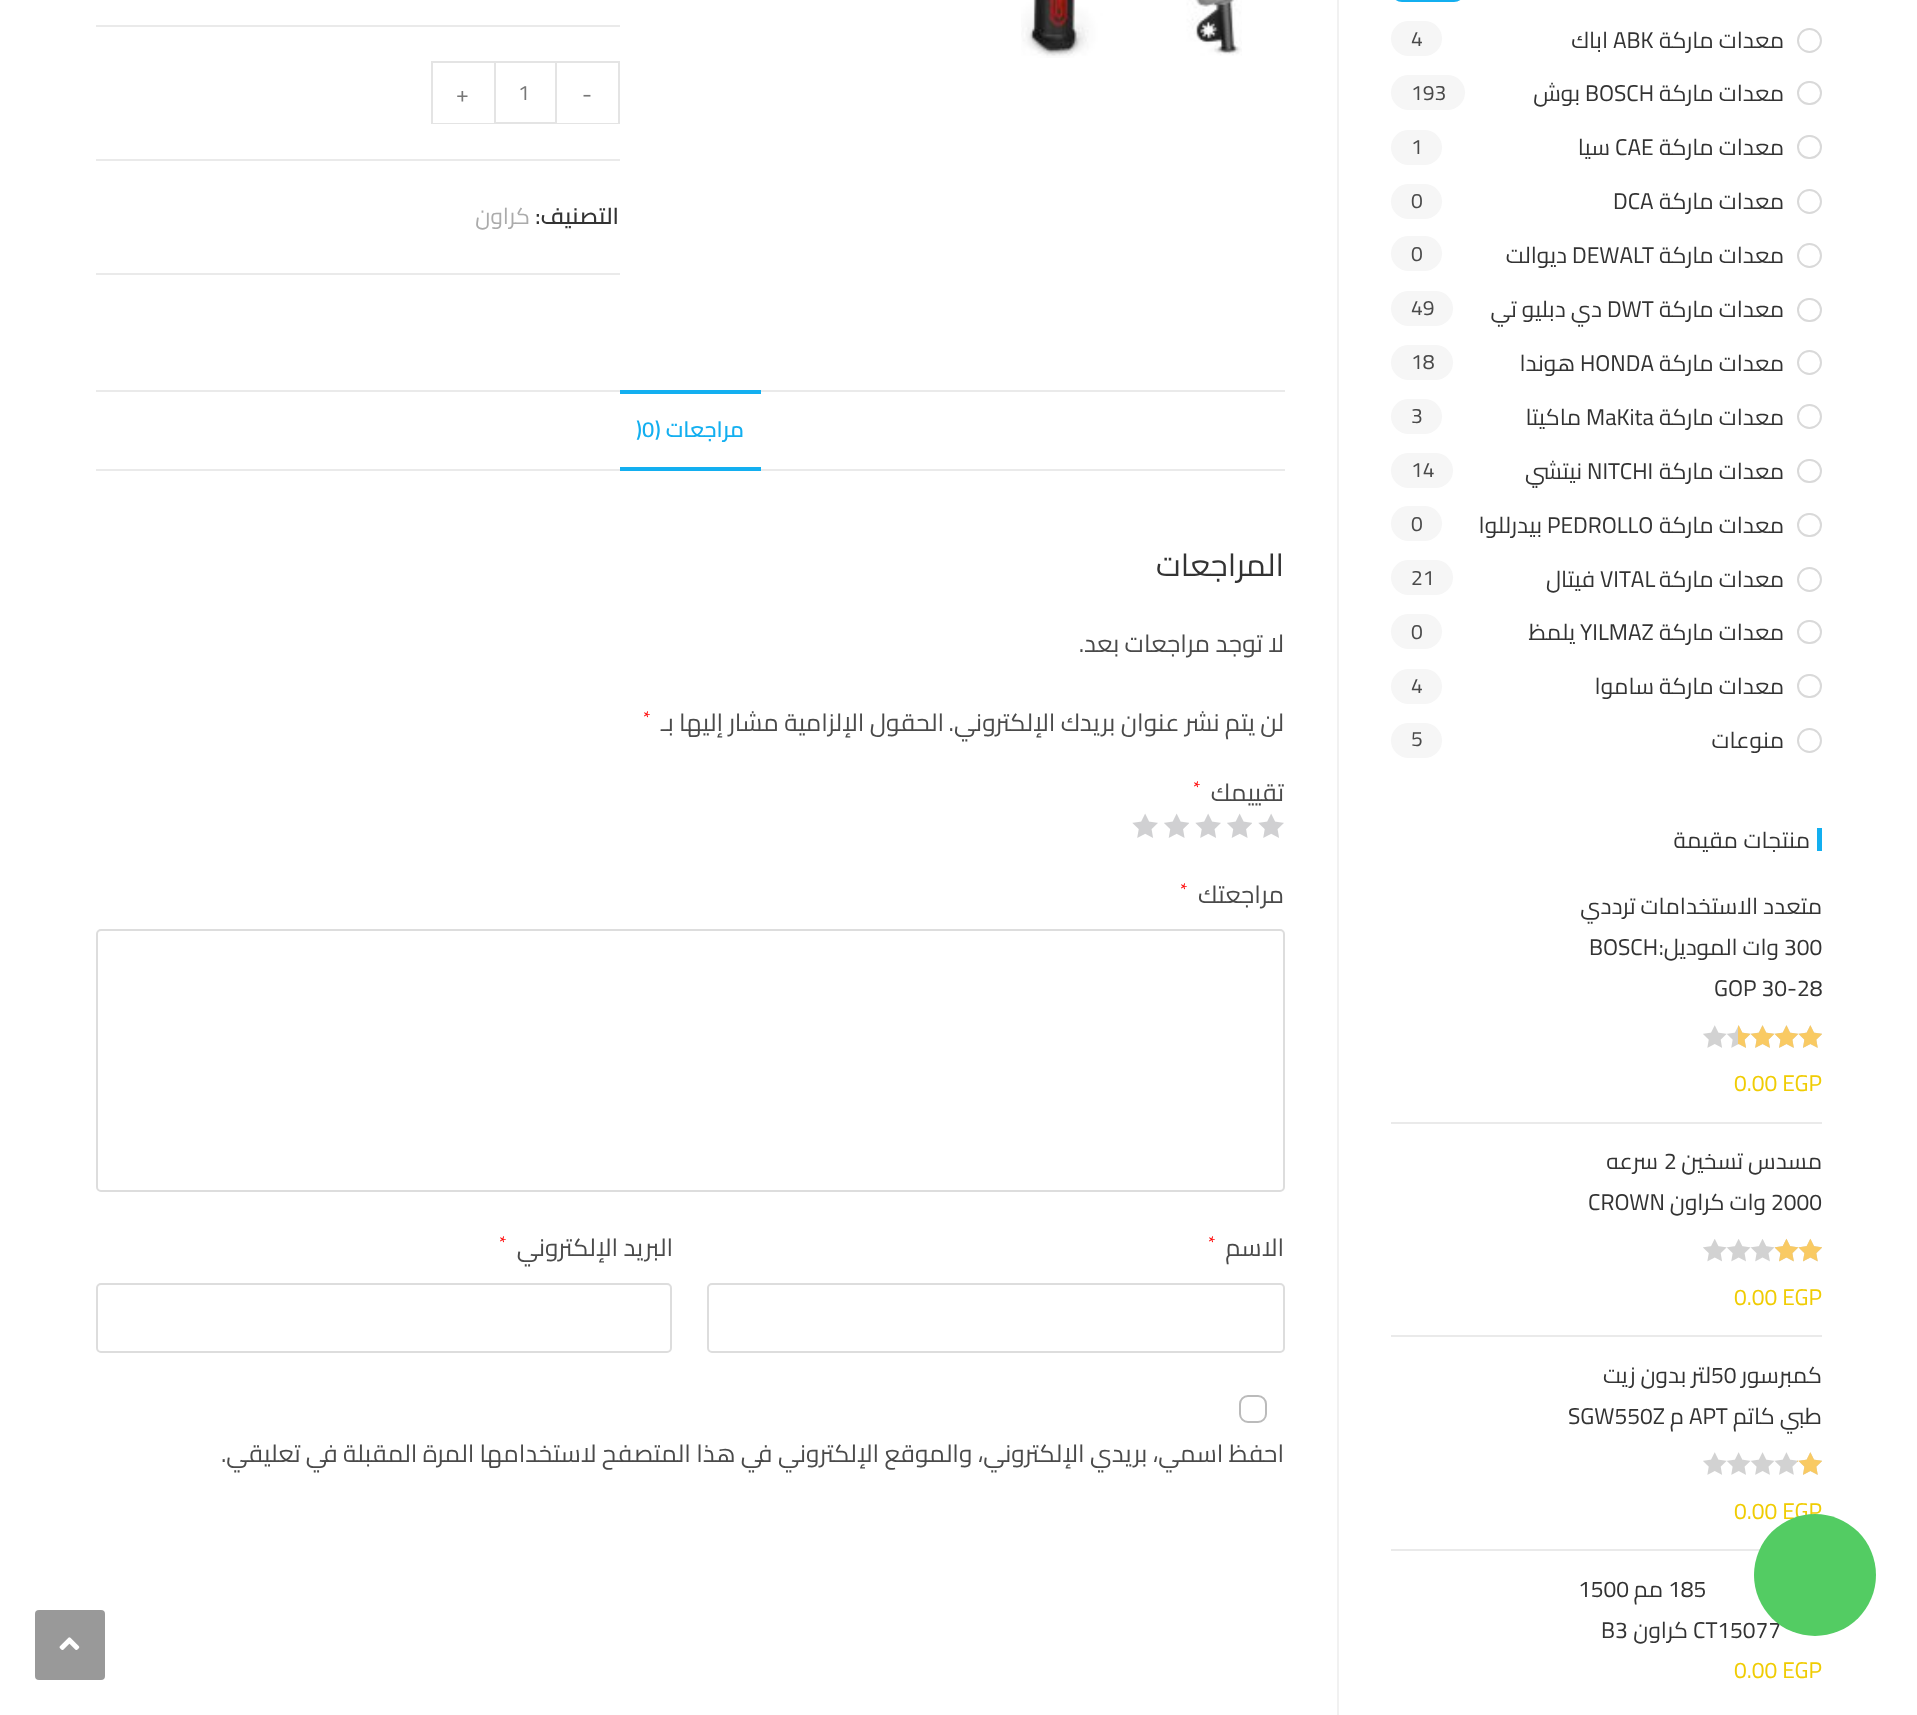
<!DOCTYPE html>
<meta charset="utf-8">
<style>body { margin: 0 } canvas { display: block }</style>
<canvas id="canvas" width="1917" height="1715"></canvas>
<img id="img1" src="images/1.png" hidden>
<img id="img2" src="images/2.png" hidden>
<img id="img3" src="images/4.png" hidden>
<img id="img4" src="images/3.png" hidden>
<img id="img5" src="images/5.png" hidden>
<img id="img6" src="images/6.png" hidden>
<img id="img7" src="images/7.png" hidden>
<img id="img8" src="images/8.png" hidden>
<img id="img9" src="images/9.png" hidden>
<script>
window.onload = function () {
    const canvas = document.getElementById('canvas');
    const context = canvas.getContext('2d');
    context.miterLimit = 4;
    context.fontKerning = 'normal';

    context.fillStyle = 'rgb(255, 255, 255)';
    context.fillRect(0, 0, 1917, 1715);
    context.beginPath();
    context.roundRect(1392, -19, 72, 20, 16.5);
    context.strokeStyle = 'rgb(19, 175, 240)';
    context.lineWidth = 2;
    context.stroke();
    context.beginPath();
    context.arc(1809.5, 40.5, 11.5, 0, 2 * Math.PI);
    context.strokeStyle = 'rgb(217, 217, 217)';
    context.stroke();
    context.fillStyle = 'rgb(246, 246, 246)';
    context.beginPath();
    context.roundRect(1391, 21, 51, 35, 17.5);
    context.fill();
    context.beginPath();
    context.roundRect(1798, 82, 23, 22, 11);
    context.stroke();
    context.beginPath();
    context.roundRect(1391, 75, 74, 35, 17.5);
    context.fill();
    context.beginPath();
    context.roundRect(1798, 136, 23, 22, 11);
    context.stroke();
    context.beginPath();
    context.roundRect(1391, 130, 51, 35, 17.5);
    context.fill();
    context.beginPath();
    context.arc(1809.5, 201.5, 11.5, 0, 2 * Math.PI);
    context.stroke();
    context.beginPath();
    context.roundRect(1391, 184, 51, 35, 17.5);
    context.fill();
    context.beginPath();
    context.arc(1809.5, 255.5, 11.5, 0, 2 * Math.PI);
    context.stroke();
    context.beginPath();
    context.roundRect(1391, 236, 51, 35, 17.5);
    context.fill();
    context.beginPath();
    context.roundRect(1798, 299, 23, 22, 11);
    context.stroke();
    context.beginPath();
    context.roundRect(1391, 291, 62, 35, 17.5);
    context.fill();
    context.beginPath();
    context.arc(1809.5, 362.5, 11.5, 0, 2 * Math.PI);
    context.stroke();
    context.beginPath();
    context.roundRect(1391, 345, 62, 35, 17.5);
    context.fill();
    context.beginPath();
    context.arc(1809.5, 416.5, 11.5, 0, 2 * Math.PI);
    context.stroke();
    context.beginPath();
    context.roundRect(1391, 399, 51, 35, 17.5);
    context.fill();
    context.beginPath();
    context.roundRect(1798, 460, 23, 22, 11);
    context.stroke();
    context.beginPath();
    context.roundRect(1391, 453, 62, 35, 17.5);
    context.fill();
    context.beginPath();
    context.roundRect(1798, 514, 23, 22, 11);
    context.stroke();
    context.beginPath();
    context.roundRect(1391, 506, 51, 35, 17.5);
    context.fill();
    context.beginPath();
    context.arc(1809.5, 579.5, 11.5, 0, 2 * Math.PI);
    context.stroke();
    context.beginPath();
    context.roundRect(1391, 560, 62, 35, 17.5);
    context.fill();
    context.beginPath();
    context.roundRect(1798, 621, 23, 22, 11);
    context.stroke();
    context.beginPath();
    context.roundRect(1391, 614, 51, 35, 17.5);
    context.fill();
    context.beginPath();
    context.roundRect(1798, 675, 23, 22, 11);
    context.stroke();
    context.beginPath();
    context.roundRect(1391, 669, 51, 35, 17.5);
    context.fill();
    context.beginPath();
    context.arc(1809.5, 740.5, 11.5, 0, 2 * Math.PI);
    context.stroke();
    context.beginPath();
    context.roundRect(1391, 723, 51, 35, 17.5);
    context.fill();
    context.fillStyle = 'rgb(19, 175, 240)';
    context.fillRect(1817, 828, 5, 23);
    context.fillStyle = 'rgb(234, 234, 234)';
    context.fillRect(1391, 1122, 431, 2);
    context.drawImage(document.getElementById('img1'), 1703, 1025, 119, 23);
    context.drawImage(document.getElementById('img2'), 1738, 1025, 84, 23);
    context.fillRect(1391, 1335, 431, 2);
    context.drawImage(document.getElementById('img3'), 1703, 1239, 119, 23);
    context.drawImage(document.getElementById('img4'), 1775, 1238, 47, 24);
    context.fillRect(1391, 1549, 369, 2);
    context.drawImage(document.getElementById('img1'), 1703, 1452, 119, 23);
    context.drawImage(document.getElementById('img5'), 1797, 1452, 25, 23);
    context.fillStyle = 'rgb(241, 241, 241)';
    context.fillRect(1337, 0, 2, 1715);
    context.drawImage(document.getElementById('img6'), 1021, 0, 221, 58);
    context.fillStyle = 'rgb(234, 234, 234)';
    context.fillRect(96, 25, 524, 2);
    context.fillRect(96, 159, 524, 2);
    context.fillStyle = 'rgb(228, 228, 228)';
    context.fillRect(557, 61, 63, 2);
    context.fillRect(618, 61, 2, 63);
    context.fillRect(557, 123, 63, 1);
    context.strokeStyle = 'rgb(228, 228, 228)';
    context.strokeRect(495, 62, 61, 61);
    context.fillRect(431, 61, 63, 2);
    context.fillRect(431, 123, 63, 1);
    context.fillRect(431, 61, 2, 63);
    context.fillStyle = 'rgb(234, 234, 234)';
    context.fillRect(96, 273, 524, 2);
    context.fillRect(96, 390, 1189, 2);
    context.fillRect(96, 469, 1189, 2);
    context.fillStyle = 'rgb(19, 175, 240)';
    context.fillRect(620, 390, 141, 4);
    context.fillRect(620, 467, 141, 4);
    context.drawImage(document.getElementById('img7'), 1258, 813, 26, 25);
    context.drawImage(document.getElementById('img8'), 1227, 813, 25, 25);
    context.drawImage(document.getElementById('img7'), 1195, 813, 26, 25);
    context.drawImage(document.getElementById('img8'), 1164, 813, 25, 25);
    context.drawImage(document.getElementById('img7'), 1132, 813, 26, 25);
    context.beginPath();
    context.roundRect(97, 930, 1187, 261, 4);
    context.strokeStyle = 'rgb(221, 221, 221)';
    context.stroke();
    context.beginPath();
    context.roundRect(708, 1284, 576, 68, 4);
    context.stroke();
    context.beginPath();
    context.roundRect(97, 1284, 574, 68, 4);
    context.stroke();
    context.beginPath();
    context.roundRect(1240, 1396, 26, 26, 8);
    context.strokeStyle = 'rgb(187, 187, 187)';
    context.stroke();
    context.fillStyle = 'rgb(153, 153, 153)';
    context.beginPath();
    context.roundRect(35, 1610, 70, 70, 4);
    context.fill();
    context.drawImage(document.getElementById('img9'), 59, 1637, 21, 13);
    context.direction = 'rtl';
    context.font = '22.75px Cairo';
    context.fillStyle = 'rgb(51, 51, 51)';
    context.fillText('معدات ماركة', 1784, 48);
    context.direction = 'ltr';
    context.fillText('ABK', 1613, 48);
    context.direction = 'rtl';
    context.fillText('اباك', 1608, 48);
    context.direction = 'ltr';
    context.font = '21px Cairo';
    context.fillStyle = 'rgb(74, 74, 74)';
    context.fillText('4', 1411, 46);
    context.direction = 'rtl';
    context.font = '22.75px Cairo';
    context.fillStyle = 'rgb(51, 51, 51)';
    context.fillText('معدات ماركة', 1784, 101);
    context.direction = 'ltr';
    context.fillText('BOSCH', 1585, 101);
    context.direction = 'rtl';
    context.fillText('بوش', 1580, 101);
    context.direction = 'ltr';
    context.font = '21px Cairo';
    context.fillStyle = 'rgb(74, 74, 74)';
    context.fillText('193', 1411, 100);
    context.direction = 'rtl';
    context.font = '22.75px Cairo';
    context.fillStyle = 'rgb(51, 51, 51)';
    context.fillText('معدات ماركة', 1784, 155);
    context.direction = 'ltr';
    context.fillText('CAE', 1615, 155);
    context.direction = 'rtl';
    context.fillText('سيا', 1610, 155);
    context.direction = 'ltr';
    context.font = '21px Cairo';
    context.fillStyle = 'rgb(74, 74, 74)';
    context.fillText('1', 1411, 154);
    context.direction = 'rtl';
    context.font = '22.75px Cairo';
    context.fillStyle = 'rgb(51, 51, 51)';
    context.fillText('معدات ماركة', 1784, 209);
    context.direction = 'ltr';
    context.fillText('DCA', 1613, 209);
    context.font = '21px Cairo';
    context.fillStyle = 'rgb(74, 74, 74)';
    context.fillText('0', 1411, 208);
    context.direction = 'rtl';
    context.font = '22.75px Cairo';
    context.fillStyle = 'rgb(51, 51, 51)';
    context.fillText('معدات ماركة', 1784, 263);
    context.direction = 'ltr';
    context.fillText('DEWALT', 1572, 263);
    context.direction = 'rtl';
    context.fillText('ديوالت', 1567, 263);
    context.direction = 'ltr';
    context.font = '21px Cairo';
    context.fillStyle = 'rgb(74, 74, 74)';
    context.fillText('0', 1411, 261);
    context.direction = 'rtl';
    context.font = '22.75px Cairo';
    context.fillStyle = 'rgb(51, 51, 51)';
    context.fillText('معدات ماركة', 1784, 317);
    context.direction = 'ltr';
    context.fillText('DWT', 1607, 317);
    context.direction = 'rtl';
    context.fillText('دي دبليو تي', 1602, 317);
    context.direction = 'ltr';
    context.font = '21px Cairo';
    context.fillStyle = 'rgb(74, 74, 74)';
    context.fillText('49', 1411, 315);
    context.direction = 'rtl';
    context.font = '22.75px Cairo';
    context.fillStyle = 'rgb(51, 51, 51)';
    context.fillText('معدات ماركة', 1784, 371);
    context.direction = 'ltr';
    context.fillText('HONDA', 1580, 371);
    context.direction = 'rtl';
    context.fillText('هوندا', 1575, 371);
    context.direction = 'ltr';
    context.font = '21px Cairo';
    context.fillStyle = 'rgb(74, 74, 74)';
    context.fillText('18', 1411, 369);
    context.direction = 'rtl';
    context.font = '22.75px Cairo';
    context.fillStyle = 'rgb(51, 51, 51)';
    context.fillText('معدات ماركة', 1784, 425);
    context.direction = 'ltr';
    context.fillText('MaKita', 1586, 425);
    context.direction = 'rtl';
    context.fillText('ماكيتا', 1581, 425);
    context.direction = 'ltr';
    context.font = '21px Cairo';
    context.fillStyle = 'rgb(74, 74, 74)';
    context.fillText('3', 1411, 423);
    context.direction = 'rtl';
    context.font = '22.75px Cairo';
    context.fillStyle = 'rgb(51, 51, 51)';
    context.fillText('معدات ماركة', 1784, 479);
    context.direction = 'ltr';
    context.fillText('NITCHI', 1587, 479);
    context.direction = 'rtl';
    context.fillText('نيتشي', 1582, 479);
    context.direction = 'ltr';
    context.font = '21px Cairo';
    context.fillStyle = 'rgb(74, 74, 74)';
    context.fillText('14', 1411, 477);
    context.direction = 'rtl';
    context.font = '22.75px Cairo';
    context.fillStyle = 'rgb(51, 51, 51)';
    context.fillText('معدات ماركة', 1784, 533);
    context.direction = 'ltr';
    context.fillText('PEDROLLO', 1547, 533);
    context.direction = 'rtl';
    context.fillText('بيدرللوا', 1542, 533);
    context.direction = 'ltr';
    context.font = '21px Cairo';
    context.fillStyle = 'rgb(74, 74, 74)';
    context.fillText('0', 1411, 531);
    context.direction = 'rtl';
    context.font = '22.75px Cairo';
    context.fillStyle = 'rgb(51, 51, 51)';
    context.fillText('معدات ماركة', 1784, 587);
    context.direction = 'ltr';
    context.fillText('VITAL', 1600, 587);
    context.direction = 'rtl';
    context.fillText('فيتال', 1595, 587);
    context.direction = 'ltr';
    context.font = '21px Cairo';
    context.fillStyle = 'rgb(74, 74, 74)';
    context.fillText('21', 1411, 585);
    context.direction = 'rtl';
    context.font = '22.75px Cairo';
    context.fillStyle = 'rgb(51, 51, 51)';
    context.fillText('معدات ماركة', 1784, 640);
    context.direction = 'ltr';
    context.fillText('YILMAZ', 1580, 640);
    context.direction = 'rtl';
    context.fillText('يلمظ', 1575, 640);
    context.direction = 'ltr';
    context.font = '21px Cairo';
    context.fillStyle = 'rgb(74, 74, 74)';
    context.fillText('0', 1411, 639);
    context.direction = 'rtl';
    context.font = '22.75px Cairo';
    context.fillStyle = 'rgb(51, 51, 51)';
    context.fillText('معدات ماركة ساموا', 1784, 694);
    context.direction = 'ltr';
    context.font = '21px Cairo';
    context.fillStyle = 'rgb(74, 74, 74)';
    context.fillText('4', 1411, 693);
    context.direction = 'rtl';
    context.font = '22.75px Cairo';
    context.fillStyle = 'rgb(51, 51, 51)';
    context.fillText('منوعات', 1784, 748);
    context.direction = 'ltr';
    context.font = '21px Cairo';
    context.fillStyle = 'rgb(74, 74, 74)';
    context.fillText('5', 1411, 746);
    context.letterSpacing = '1.75px';
    context.wordSpacing = '-1px';
    context.direction = 'rtl';
    context.font = '22.75px Cairo';
    context.fillStyle = 'rgb(51, 51, 51)';
    context.fillText('منتجات مقيمة', 1810, 848);
    context.letterSpacing = '0px';
    context.wordSpacing = '0px';
    context.fillText('متعدد الاستخدامات ترددي', 1822, 914);
    context.direction = 'ltr';
    context.fillText('300', 1784, 955);
    context.direction = 'rtl';
    context.fillText('وات الموديل:', 1779, 955);
    context.direction = 'ltr';
    context.fillText('BOSCH', 1589, 955);
    context.fillText('GOP 30-28', 1714, 996);
    context.fillStyle = 'rgb(240, 204, 3)';
    context.fillText('0.00 EGP', 1734, 1091);
    context.direction = 'rtl';
    context.fillStyle = 'rgb(51, 51, 51)';
    context.fillText('مسدس تسخين', 1822, 1169);
    context.direction = 'ltr';
    context.fillText('2', 1664, 1169);
    context.direction = 'rtl';
    context.fillText('سرعه', 1658, 1169);
    context.direction = 'ltr';
    context.fillText('2000', 1771, 1210);
    context.direction = 'rtl';
    context.fillText('وات كراون', 1766, 1210);
    context.direction = 'ltr';
    context.fillText('CROWN', 1588, 1210);
    context.fillStyle = 'rgb(240, 204, 3)';
    context.fillText('0.00 EGP', 1734, 1305);
    context.direction = 'rtl';
    context.fillStyle = 'rgb(51, 51, 51)';
    context.fillText('كمبرسور', 1822, 1383);
    context.direction = 'ltr';
    context.fillText('50', 1711, 1383);
    context.direction = 'rtl';
    context.fillText('لتر بدون زيت', 1711, 1383);
    context.fillText('طبي كاتم', 1822, 1424);
    context.direction = 'ltr';
    context.fillText('APT', 1689, 1424);
    context.direction = 'rtl';
    context.fillText('م', 1684, 1424);
    context.direction = 'ltr';
    context.fillText('SGW550Z', 1568, 1424);
    context.fillStyle = 'rgb(240, 204, 3)';
    context.fillText('0.00 EGP', 1734, 1519);
    context.fillStyle = 'rgb(51, 51, 51)';
    context.fillText('185', 1668, 1597);
    context.direction = 'rtl';
    context.fillText('مم', 1663, 1597);
    context.direction = 'ltr';
    context.fillText('1500', 1578, 1597);
    context.fillText('CT15077', 1693, 1638);
    context.direction = 'rtl';
    context.fillText('كراون', 1688, 1638);
    context.direction = 'ltr';
    context.fillText('B3', 1601, 1638);
    context.fillStyle = 'rgb(240, 204, 3)';
    context.fillText('0.00 EGP', 1734, 1678);
    context.fillStyle = 'rgb(119, 119, 119)';
    context.fillText('-', 582, 102);
    context.font = '21px Cairo';
    context.fillText('1', 518, 100);
    context.font = '22.75px Cairo';
    context.fillText('+', 456, 102);
    context.direction = 'rtl';
    context.font = '600 22.75px Cairo';
    context.fillStyle = 'rgb(51, 51, 51)';
    context.fillText('التصنيف:', 619, 224);
    context.font = '22.75px Cairo';
    context.fillStyle = 'rgb(171, 171, 171)';
    context.fillText('كراون', 530, 224);
    context.font = '600 22px Cairo';
    context.fillStyle = 'rgb(19, 175, 240)';
    context.fillText('مراجعات (', 744, 437);
    context.direction = 'ltr';
    context.fillText(')0', 636, 437);
    context.direction = 'rtl';
    context.font = '31.5px Cairo';
    context.fillStyle = 'rgb(51, 51, 51)';
    context.fillText('المراجعات', 1284, 576);
    context.font = '24.5px Cairo';
    context.fillStyle = 'rgb(74, 74, 74)';
    context.fillText('لا توجد مراجعات بعد.', 1284, 652);
    context.fillText('لن يتم نشر عنوان بريدك الإلكتروني.', 1284, 731);
    context.fillText('الحقول الإلزامية مشار إليها بـ', 944, 731);
    context.direction = 'ltr';
    context.font = '18px Cairo';
    context.fillStyle = 'rgb(255, 0, 0)';
    context.fillText('*', 643, 724);
    context.direction = 'rtl';
    context.font = '24.5px Cairo';
    context.fillStyle = 'rgb(74, 74, 74)';
    context.fillText('تقييمك', 1284, 801);
    context.direction = 'ltr';
    context.font = '18px Cairo';
    context.fillStyle = 'rgb(255, 0, 0)';
    context.fillText('*', 1193, 794);
    context.direction = 'rtl';
    context.font = '24.5px Cairo';
    context.fillStyle = 'rgb(74, 74, 74)';
    context.fillText('مراجعتك', 1284, 903);
    context.direction = 'ltr';
    context.font = '18px Cairo';
    context.fillStyle = 'rgb(255, 0, 0)';
    context.fillText('*', 1180, 896);
    context.direction = 'rtl';
    context.font = '24.5px Cairo';
    context.fillStyle = 'rgb(74, 74, 74)';
    context.fillText('الاسم', 1284, 1256);
    context.direction = 'ltr';
    context.font = '18px Cairo';
    context.fillStyle = 'rgb(255, 0, 0)';
    context.fillText('*', 1208, 1249);
    context.direction = 'rtl';
    context.font = '24.5px Cairo';
    context.fillStyle = 'rgb(74, 74, 74)';
    context.fillText('البريد الإلكتروني', 673, 1256);
    context.direction = 'ltr';
    context.font = '18px Cairo';
    context.fillStyle = 'rgb(255, 0, 0)';
    context.fillText('*', 499, 1249);
    context.direction = 'rtl';
    context.font = '24.5px Cairo';
    context.fillStyle = 'rgb(74, 74, 74)';
    context.fillText('احفظ اسمي، بريدي الإلكتروني، والموقع الإلكتروني في هذا المتصفح لاستخدامها المرة المقبلة في تعليقي.', 1284, 1462);
    context.fillStyle = 'rgb(83, 204, 99)';
    context.beginPath();
    context.arc(1815, 1575, 61, 0, 2 * Math.PI);
    context.fill();
};
</script>
